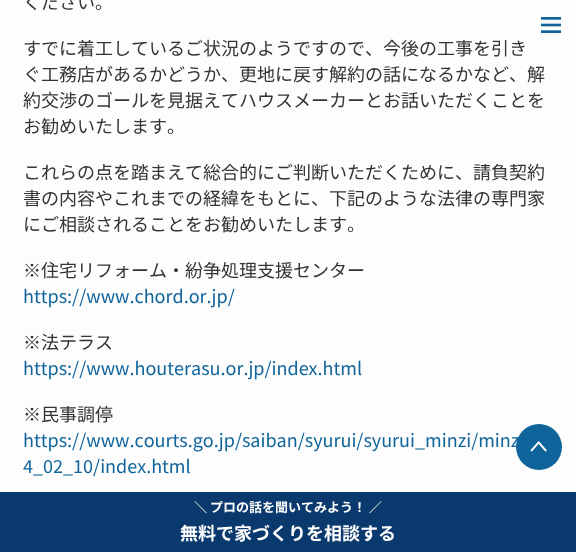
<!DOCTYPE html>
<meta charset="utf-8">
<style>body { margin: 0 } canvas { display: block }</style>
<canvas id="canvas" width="576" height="552"></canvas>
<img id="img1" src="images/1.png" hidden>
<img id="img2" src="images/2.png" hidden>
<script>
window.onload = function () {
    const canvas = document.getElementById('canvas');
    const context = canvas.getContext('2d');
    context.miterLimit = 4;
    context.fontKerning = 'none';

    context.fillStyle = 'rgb(253, 253, 253)';
    context.fillRect(0, 0, 576, 552);
    context.drawImage(document.getElementById('img1'), 541, 17, 20, 16);
    context.fillStyle = 'rgb(14, 100, 155)';
    context.beginPath();
    context.arc(539, 447, 23, 0, 2 * Math.PI);
    context.fill();
    context.drawImage(document.getElementById('img2'), 530, 441, 17, 11);
    context.fillStyle = 'rgb(10, 57, 109)';
    context.fillRect(0, 492, 576, 60);
    context.font = '18px Noto Sans JP';
    context.fillStyle = 'rgb(51, 51, 51)';
    context.fillText('ください。', 23, 9);
    context.fillText('すでに着工しているご状況のようですので、今後の工事を引き', 23, 55);
    context.fillText('ぐ工務店があるかどうか、更地に戻す解約の話になるかなど、解', 23, 81);
    context.fillText('約交渉のゴールを見据えてハウスメーカーとお話いただくことを', 23, 107);
    context.fillText('お勧めいたします。', 23, 133);
    context.fillText('これらの点を踏まえて総合的にご判断いただくために、請負契約', 23, 179);
    context.fillText('書の内容やこれまでの経緯をもとに、下記のような法律の専門家', 23, 205);
    context.fillText('にご相談されることをお勧めいたします。', 23, 231);
    context.fillText('※住宅リフォーム・紛争処理支援センター', 23, 277);
    context.fillStyle = 'rgb(14, 100, 155)';
    context.fillText('https://www.chord.or.jp/', 23, 303);
    context.fillStyle = 'rgb(51, 51, 51)';
    context.fillText('※法テラス', 23, 349);
    context.fillStyle = 'rgb(14, 100, 155)';
    context.fillText('https://www.houterasu.or.jp/index.html', 23, 375);
    context.fillStyle = 'rgb(51, 51, 51)';
    context.fillText('※民事調停', 23, 421);
    context.fillStyle = 'rgb(14, 100, 155)';
    context.fillText('https://www.courts.go.jp/saiban/syurui/syurui_minzi/minz', 23, 447);
    context.fillText('4_02_10/index.html', 23, 473);
    context.font = 'bold 13px Noto Sans JP';
    context.fillStyle = 'rgb(255, 255, 255)';
    context.fillText('＼ プロの話を聞いてみよう！ ／', 194, 512);
    context.font = 'bold 18px Noto Sans JP';
    context.fillText('無料で家づくりを相談する', 180, 540);
};
</script>
